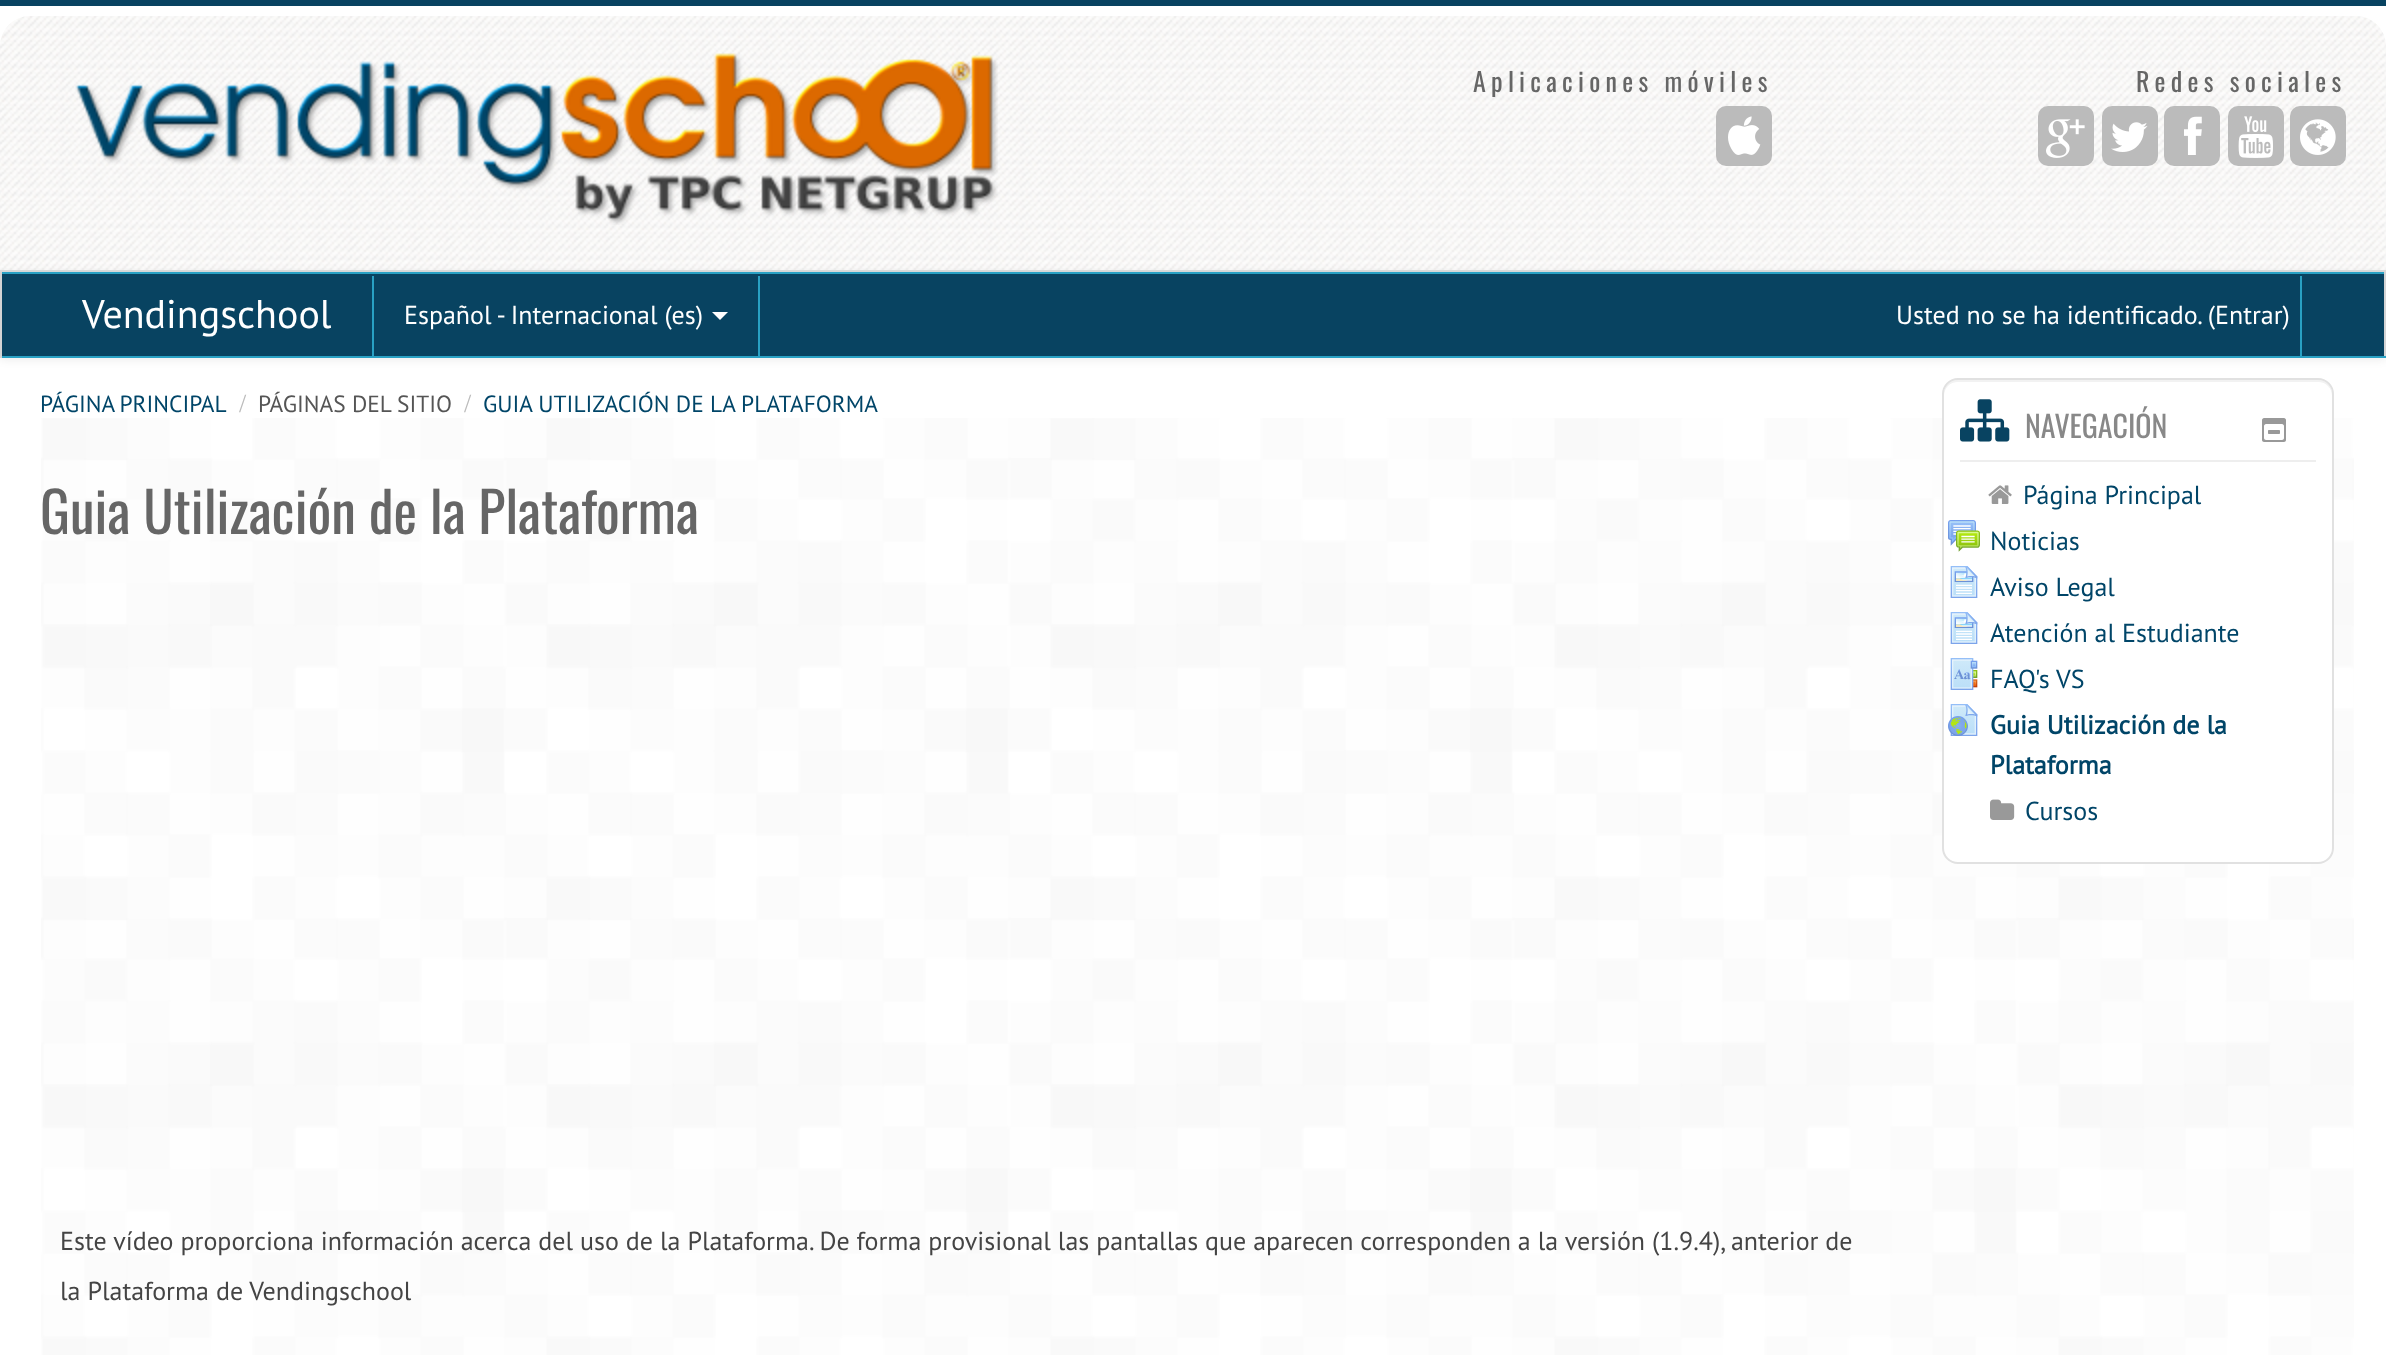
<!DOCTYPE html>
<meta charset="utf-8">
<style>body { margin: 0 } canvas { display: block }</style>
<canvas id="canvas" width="2386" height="1355"></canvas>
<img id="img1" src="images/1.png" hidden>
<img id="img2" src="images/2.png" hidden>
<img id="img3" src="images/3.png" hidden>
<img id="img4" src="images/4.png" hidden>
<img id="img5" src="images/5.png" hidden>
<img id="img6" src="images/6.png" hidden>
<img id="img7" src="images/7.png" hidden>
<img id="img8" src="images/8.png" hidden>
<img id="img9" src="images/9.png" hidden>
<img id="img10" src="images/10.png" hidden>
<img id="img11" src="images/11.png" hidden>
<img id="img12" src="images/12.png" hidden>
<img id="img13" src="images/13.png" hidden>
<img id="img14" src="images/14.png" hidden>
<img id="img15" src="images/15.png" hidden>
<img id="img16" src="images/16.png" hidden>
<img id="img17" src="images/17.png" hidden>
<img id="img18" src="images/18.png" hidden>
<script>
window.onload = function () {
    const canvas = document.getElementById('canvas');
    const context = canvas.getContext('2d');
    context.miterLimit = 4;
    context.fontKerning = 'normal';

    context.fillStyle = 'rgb(255, 255, 255)';
    context.fillRect(0, 0, 2386, 1355);
    context.drawImage(document.getElementById('img1'), 41, 418, 2313, 937);
    context.fillStyle = 'rgb(8, 67, 97)';
    context.fillRect(0, 0, 2386, 6);
    context.drawImage(document.getElementById('img2'), 0, 16, 2386, 254);
    context.fillStyle = 'rgb(221, 221, 221)';
    context.fillRect(0, 270, 2386, 2);
    context.drawImage(document.getElementById('img3'), 75, 53, 923, 172);
    context.fillStyle = 'rgb(187, 187, 187)';
    context.beginPath();
    context.roundRect(1716, 106, 56, 60, 10);
    context.fill();
    context.drawImage(document.getElementById('img4'), 1728, 116, 33, 39);
    context.beginPath();
    context.roundRect(2038, 106, 56, 60, 10);
    context.fill();
    context.drawImage(document.getElementById('img5'), 2046, 119, 39, 39);
    context.beginPath();
    context.roundRect(2102, 106, 56, 60, 10);
    context.fill();
    context.drawImage(document.getElementById('img6'), 2111, 122, 37, 30);
    context.beginPath();
    context.roundRect(2164, 106, 56, 60, 10);
    context.fill();
    context.drawImage(document.getElementById('img7'), 2184, 116, 18, 39);
    context.beginPath();
    context.roundRect(2228, 106, 56, 60, 10);
    context.fill();
    context.drawImage(document.getElementById('img8'), 2238, 116, 35, 42);
    context.beginPath();
    context.roundRect(2290, 106, 56, 60, 10);
    context.fill();
    context.drawImage(document.getElementById('img9'), 2300, 119, 36, 36);
    context.fillStyle = 'rgba(0, 0, 0, 0.07)';
    context.filter = 'blur(4px)';
    context.beginPath();
    context.rect(0, 274, 2386, 86);
    context.fill();
    context.filter = 'none';
    context.fillStyle = 'rgb(8, 67, 97)';
    context.fillRect(2, 274, 2382, 82);
    context.fillStyle = 'rgb(41, 161, 196)';
    context.fillRect(0, 272, 2386, 2);
    context.fillStyle = 'rgb(212, 212, 212)';
    context.fillRect(2384, 272, 2, 86);
    context.fillStyle = 'rgb(41, 161, 196)';
    context.fillRect(0, 356, 2386, 2);
    context.fillStyle = 'rgb(212, 212, 212)';
    context.fillRect(0, 272, 2, 86);
    context.fillStyle = 'rgb(41, 161, 196)';
    context.fillRect(758, 276, 2, 80);
    context.fillRect(372, 276, 2, 80);
    context.fillStyle = 'rgb(255, 255, 255)';
    context.beginPath();
    context.moveTo(712, 312);
    context.lineTo(728, 312);
    context.lineTo(720, 320);
    context.closePath();
    context.fill();
    context.fillStyle = 'rgb(41, 161, 196)';
    context.fillRect(2300, 276, 2, 80);
    context.fillStyle = 'rgb(255, 255, 255)';
    context.beginPath();
    context.roundRect(1942, 378, 392, 486, 16);
    context.fill();
    context.fillStyle = 'rgb(242, 242, 242)';
    context.beginPath();
    context.moveTo(1958, 382);
    context.lineTo(2318, 382);
    context.bezierCurveTo(2326, 382, 2332, 388, 2332, 396);
    context.lineTo(2332, 394);
    context.bezierCurveTo(2332, 386, 2326, 380, 2318, 380);
    context.lineTo(1958, 380);
    context.bezierCurveTo(1950, 380, 1944, 386, 1944, 394);
    context.lineTo(1944, 396);
    context.bezierCurveTo(1944, 388, 1950, 382, 1958, 382);
    context.closePath();
    context.fill();
    context.beginPath();
    context.roundRect(1943, 379, 390, 484, 15);
    context.strokeStyle = 'rgb(225, 225, 225)';
    context.lineWidth = 2;
    context.stroke();
    context.fillStyle = 'rgb(238, 238, 238)';
    context.fillRect(1960, 460, 356, 2);
    context.drawImage(document.getElementById('img10'), 1960, 399, 50, 43);
    context.drawImage(document.getElementById('img11'), 2262, 418, 24, 24);
    context.drawImage(document.getElementById('img12'), 1988, 485, 24, 19);
    context.drawImage(document.getElementById('img13'), 1948, 520, 32, 32);
    context.drawImage(document.getElementById('img14'), 1950, 566, 28, 32);
    context.drawImage(document.getElementById('img15'), 1950, 612, 28, 32);
    context.drawImage(document.getElementById('img16'), 1950, 658, 28, 32);
    context.drawImage(document.getElementById('img17'), 1948, 704, 30, 32);
    context.drawImage(document.getElementById('img18'), 1990, 799, 25, 21);
    context.letterSpacing = '5.25px';
    context.font = '26px Oswald';
    context.fillStyle = 'rgb(102, 102, 102)';
    context.fillText('Aplicaciones móviles', 1473, 92);
    context.fillText('Redes sociales', 2136, 92);
    context.letterSpacing = '0px';
    context.font = '40px PT Sans';
    context.fillStyle = 'rgb(255, 255, 255)';
    context.fillText('Vendingschool', 82, 328);
    context.font = '26px PT Sans';
    context.fillText('Español - Internacional (es)', 404, 324);
    context.fillText('Usted no se ha identificado. (Entrar)', 1896, 324);
    context.wordSpacing = '-1px';
    context.font = '23.4px PT Sans';
    context.fillStyle = 'rgb(0, 69, 104)';
    context.fillText('PÁGINA PRINCIPAL', 40, 412);
    context.wordSpacing = '0px';
    context.font = '26px Liberation Serif';
    context.fillStyle = 'rgb(187, 187, 187)';
    context.fillText('/', 239, 412);
    context.font = '23.4px PT Sans';
    context.fillStyle = 'rgb(85, 85, 85)';
    context.fillText('PÁGINAS DEL SITIO', 258, 412);
    context.font = '26px Liberation Serif';
    context.fillStyle = 'rgb(187, 187, 187)';
    context.fillText('/', 464, 412);
    context.font = '23.4px PT Sans';
    context.fillStyle = 'rgb(0, 69, 104)';
    context.fillText('GUIA UTILIZACIÓN DE LA PLATAFORMA', 483, 412);
    context.font = '56px Oswald';
    context.fillStyle = 'rgb(102, 102, 102)';
    context.fillText('Guia Utilización de la Plataforma', 40, 534);
    context.font = '26px PT Sans';
    context.fillStyle = 'rgb(68, 68, 68)';
    context.fillText('Este vídeo proporciona información acerca del uso de la Plataforma. De forma provisional las pantallas que aparecen corresponden a la versión (1.9.4), anterior de', 60, 1250);
    context.fillText('la Plataforma de Vendingschool', 60, 1300);
    context.font = '30px Oswald';
    context.fillStyle = 'rgb(136, 136, 136)';
    context.fillText('NAVEGACIÓN', 2025, 438);
    context.font = '26px PT Sans';
    context.fillStyle = 'rgb(0, 69, 104)';
    context.fillText('Página Principal', 2023, 504);
    context.fillText('Noticias', 1990, 550);
    context.fillText('Aviso Legal', 1990, 596);
    context.fillText('Atención al Estudiante', 1990, 642);
    context.fillText('FAQ\'s VS', 1990, 688);
    context.font = 'bold 26px PT Sans';
    context.fillText('Guia Utilización de la', 1990, 734);
    context.fillText('Plataforma', 1990, 774);
    context.font = '26px PT Sans';
    context.fillText('Cursos', 2025, 820);
};
</script>
